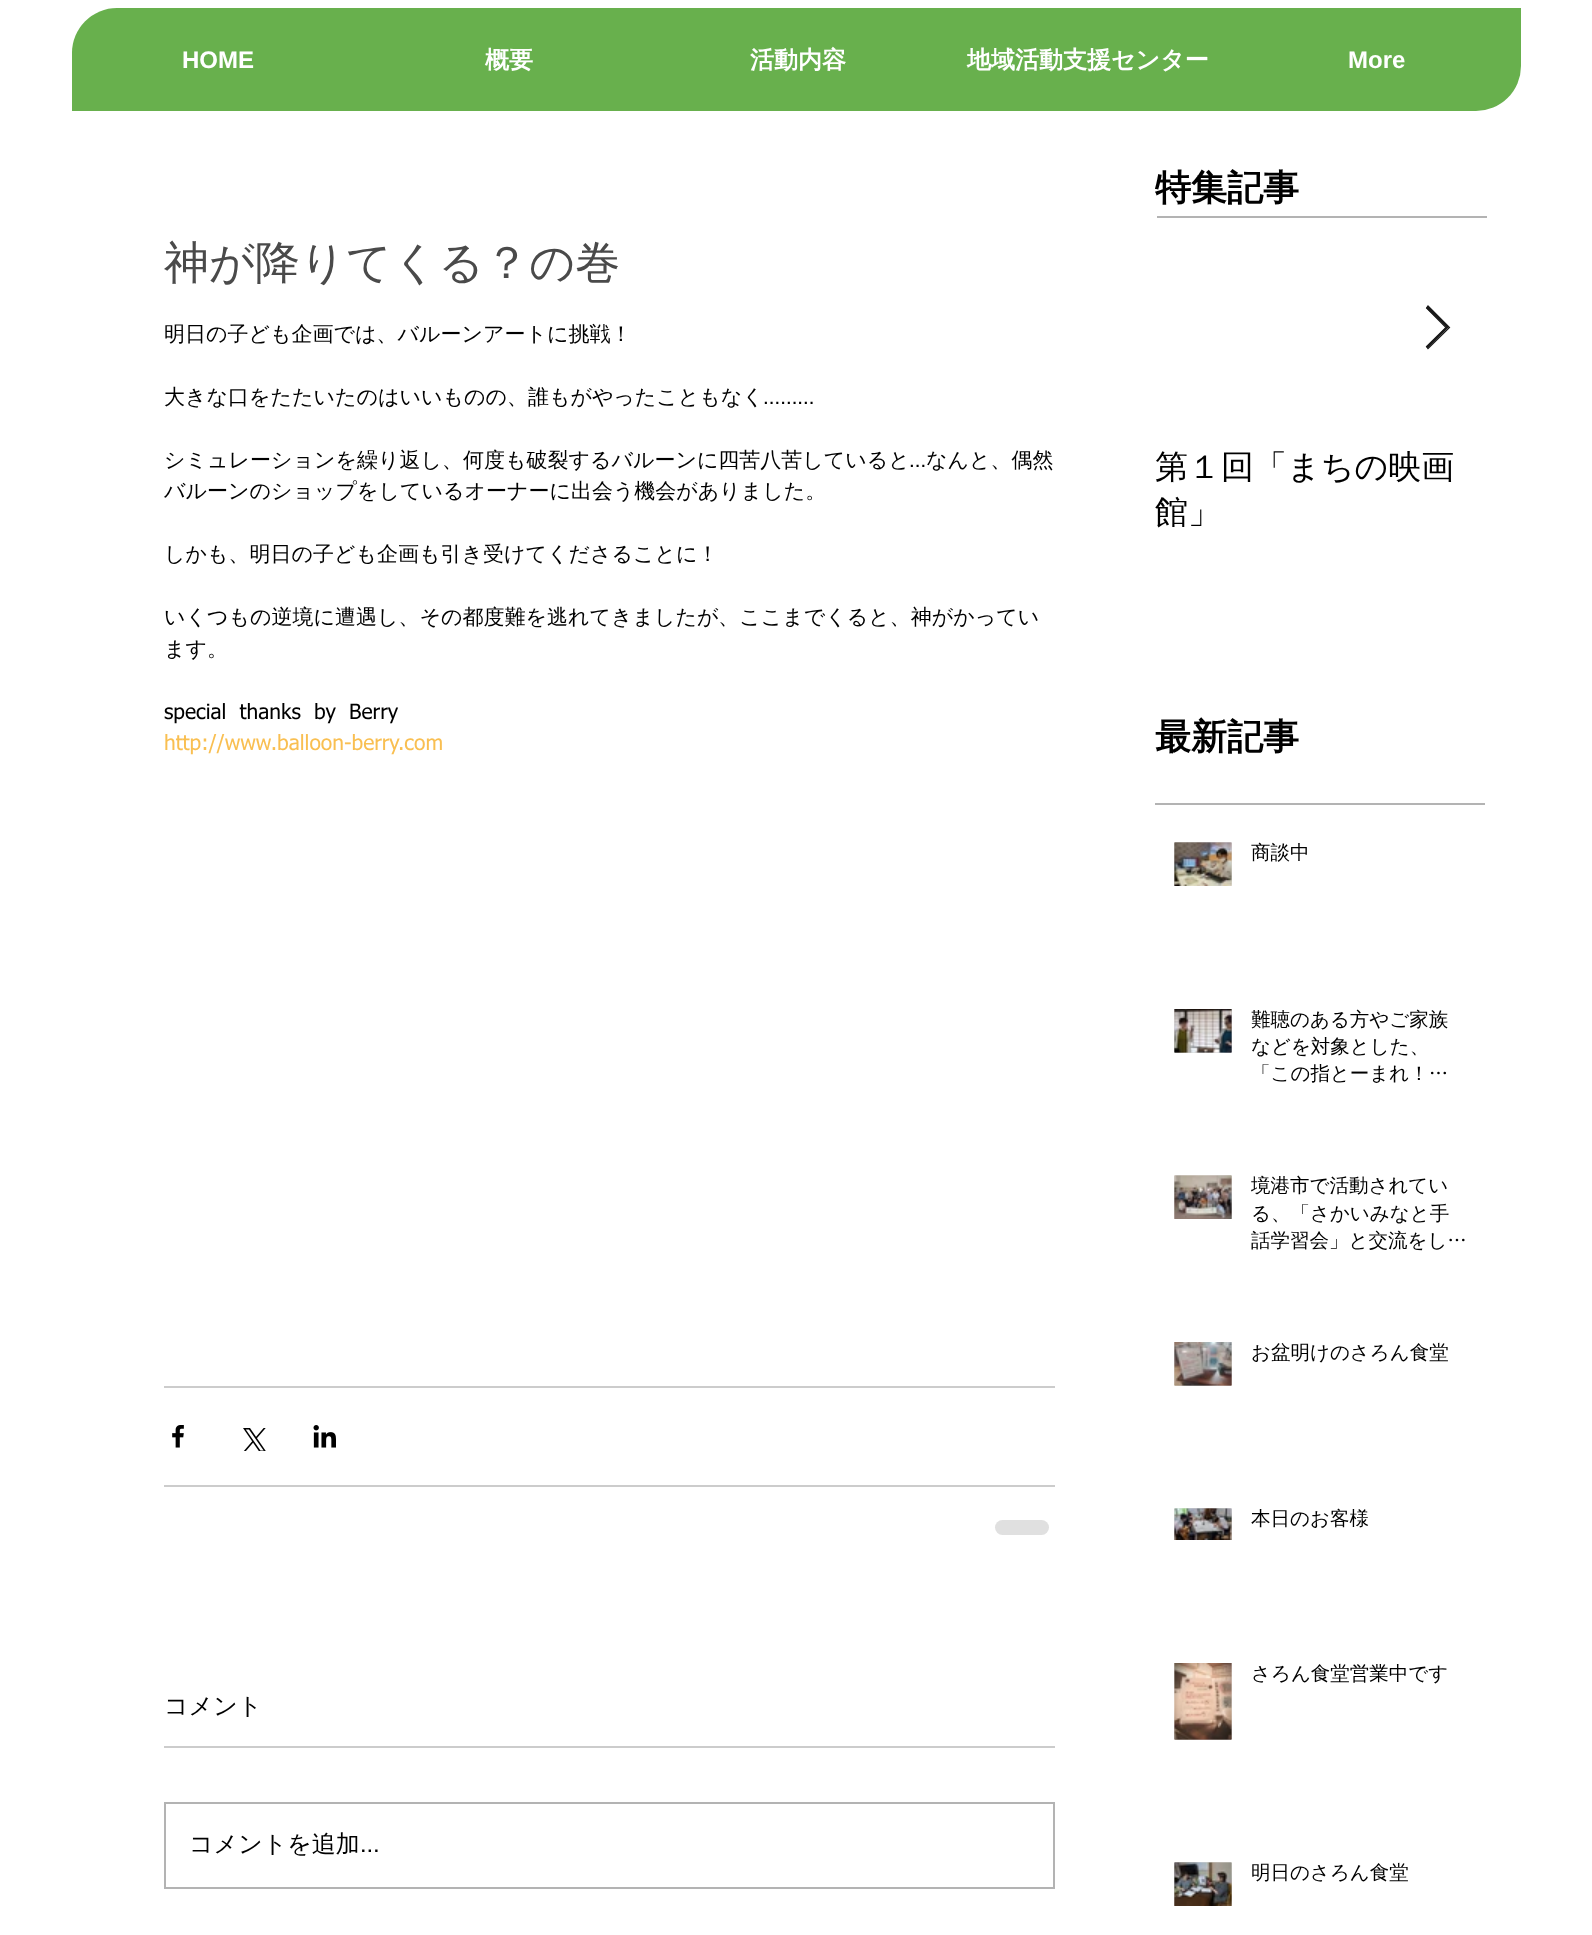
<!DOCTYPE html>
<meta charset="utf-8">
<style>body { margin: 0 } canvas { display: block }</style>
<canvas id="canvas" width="1592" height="1935"></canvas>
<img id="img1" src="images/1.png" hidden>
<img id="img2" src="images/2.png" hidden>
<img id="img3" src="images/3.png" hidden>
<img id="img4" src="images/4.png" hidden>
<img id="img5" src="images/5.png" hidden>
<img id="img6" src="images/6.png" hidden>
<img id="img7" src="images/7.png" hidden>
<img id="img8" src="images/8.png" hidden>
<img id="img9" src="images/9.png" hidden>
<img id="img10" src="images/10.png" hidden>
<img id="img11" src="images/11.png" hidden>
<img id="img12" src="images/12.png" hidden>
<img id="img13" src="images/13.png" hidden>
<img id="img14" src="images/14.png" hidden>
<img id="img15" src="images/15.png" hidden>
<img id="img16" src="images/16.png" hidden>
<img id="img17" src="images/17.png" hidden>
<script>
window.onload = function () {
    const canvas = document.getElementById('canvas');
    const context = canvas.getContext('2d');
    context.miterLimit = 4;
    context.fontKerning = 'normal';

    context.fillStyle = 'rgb(255, 255, 255)';
    context.fillRect(0, 0, 1592, 1935);
    context.fillStyle = 'rgb(104, 176, 77)';
    context.beginPath();
    context.roundRect(72, 8, 1449, 103, [45, 0, 45, 0]);
    context.fill();
    context.fillStyle = 'rgb(179, 179, 179)';
    context.fillRect(1157, 216, 330, 2);
    context.fillStyle = 'rgb(204, 204, 204)';
    context.fillRect(164, 1386, 891, 2);
    context.drawImage(document.getElementById('img1'), 172, 1425, 12, 23);
    context.drawImage(document.getElementById('img2'), 243, 1428, 23, 23);
    context.drawImage(document.getElementById('img3'), 313, 1425, 23, 23);
    context.fillRect(164, 1485, 891, 2);
    context.fillStyle = 'rgb(224, 224, 224)';
    context.beginPath();
    context.roundRect(995, 1520, 54, 15, 7.5);
    context.fill();
    context.fillStyle = 'rgb(204, 204, 204)';
    context.fillRect(164, 1746, 891, 2);
    context.strokeStyle = 'rgb(179, 179, 179)';
    context.lineWidth = 2;
    context.strokeRect(165, 1803, 889, 85);
    context.fillStyle = 'rgb(26, 26, 26)';
    context.beginPath();
    context.moveTo(1426, 308);
    context.lineTo(1428, 306);
    context.lineTo(1449, 327);
    context.lineTo(1428, 348);
    context.lineTo(1426, 347);
    context.lineTo(1446, 327);
    context.closePath();
    context.fill();
    context.beginPath();
    context.moveTo(1426.5, 308);
    context.lineTo(1428, 306);
    context.lineTo(1449.5, 327.5);
    context.lineTo(1428, 348.5);
    context.lineTo(1426.5, 346.5);
    context.lineTo(1446, 327.5);
    context.closePath();
    context.strokeStyle = 'rgb(26, 26, 26)';
    context.lineWidth = 1.2;
    context.stroke();
    context.fillStyle = 'rgb(179, 179, 179)';
    context.fillRect(1155, 803, 330, 2);
    context.drawImage(document.getElementById('img4'), 1174, 842, 58, 44);
    context.drawImage(document.getElementById('img5'), 1174, 842, 58, 44);
    context.drawImage(document.getElementById('img6'), 1174, 1009, 58, 44);
    context.drawImage(document.getElementById('img7'), 1174, 1009, 58, 44);
    context.drawImage(document.getElementById('img8'), 1174, 1175, 58, 44);
    context.drawImage(document.getElementById('img9'), 1174, 1175, 58, 44);
    context.drawImage(document.getElementById('img10'), 1174, 1342, 58, 44);
    context.drawImage(document.getElementById('img11'), 1174, 1342, 58, 44);
    context.drawImage(document.getElementById('img12'), 1174, 1508, 58, 32);
    context.drawImage(document.getElementById('img13'), 1174, 1508, 58, 32);
    context.drawImage(document.getElementById('img14'), 1174, 1663, 58, 77);
    context.drawImage(document.getElementById('img15'), 1174, 1663, 58, 77);
    context.drawImage(document.getElementById('img16'), 1174, 1862, 58, 44);
    context.drawImage(document.getElementById('img17'), 1174, 1862, 58, 44);
    context.font = 'bold 24px Liberation Sans';
    context.fillStyle = 'rgb(255, 255, 255)';
    context.fillText('HOME', 182, 68);
    context.font = 'bold 24px WenQuanYi Zen Hei';
    context.fillText('概要', 485, 68);
    context.fillText('活動内容', 750, 68);
    context.fillText('地域活動支援センター', 967, 68);
    context.font = 'bold 24px Liberation Sans';
    context.fillText('More', 1348, 68);
    context.font = 'bold 36px WenQuanYi Zen Hei';
    context.fillStyle = 'rgb(0, 0, 0)';
    context.fillText('特集記事', 1155, 200);
    context.font = '500 45px WenQuanYi Zen Hei';
    context.fillStyle = 'rgb(74, 74, 74)';
    context.fillText('神が降りてくる？の巻', 164, 278);
    context.font = '500 21px WenQuanYi Zen Hei';
    context.fillStyle = 'rgb(0, 0, 0)';
    context.fillText('明日の子ども企画では、バルーンアートに挑戦！', 164, 341);
    context.fillText('大きな口をたたいたのはいいものの、誰もがやったこともなく', 164, 404);
    context.font = '21px tahoma';
    context.fillText('………', 763, 404);
    context.font = '500 21px WenQuanYi Zen Hei';
    context.fillText('シミュレーションを繰り返し、何度も破裂するバルーンに四苦八苦していると', 164, 467);
    context.font = '21px tahoma';
    context.fillText('…', 909, 467);
    context.font = '500 21px WenQuanYi Zen Hei';
    context.fillText('なんと、偶然', 926, 467);
    context.fillText('バルーンのショップをしているオーナーに出会う機会がありました。', 164, 498);
    context.fillText('しかも、明日の子ども企画も引き受けてくださることに！', 164, 561);
    context.fillText('いくつもの逆境に遭遇し、その都度難を逃れてきましたが、ここまでくると、神がかってい', 164, 624);
    context.fillText('ます。', 164, 656);
    context.font = '21px tahoma';
    context.fillText('special  thanks  by  Berry', 164, 719);
    context.fillStyle = 'rgb(249, 191, 81)';
    context.fillText('http://www.balloon-berry.com', 164, 750);
    context.font = '500 24px WenQuanYi Zen Hei';
    context.fillStyle = 'rgb(0, 0, 0)';
    context.fillText('コメント', 164, 1714);
    context.fillText('コメントを追加', 189, 1852);
    context.font = '24px tahoma';
    context.fillText('…', 360, 1852);
    context.font = '500 33px WenQuanYi Zen Hei';
    context.fillText('第１回「まちの映画', 1155, 478);
    context.fillText('館」', 1155, 523);
    context.font = 'bold 36px WenQuanYi Zen Hei';
    context.fillText('最新記事', 1155, 749);
    context.font = '500 19.5px WenQuanYi Zen Hei';
    context.fillText('商談中', 1251, 859);
    context.fillText('難聴のある方やご家族', 1251, 1026);
    context.fillText('などを対象とした、', 1251, 1053);
    context.fillText('「この指とーまれ！…', 1251, 1080);
    context.fillText('境港市で活動されてい', 1251, 1192);
    context.fillText('る、「さかいみなと手', 1251, 1220);
    context.fillText('話学習会」と交流をし…', 1251, 1247);
    context.fillText('お盆明けのさろん食堂', 1251, 1359);
    context.fillText('本日のお客様', 1251, 1525);
    context.fillText('さろん食堂営業中です', 1251, 1680);
    context.fillText('明日のさろん食堂', 1251, 1879);
};
</script>
